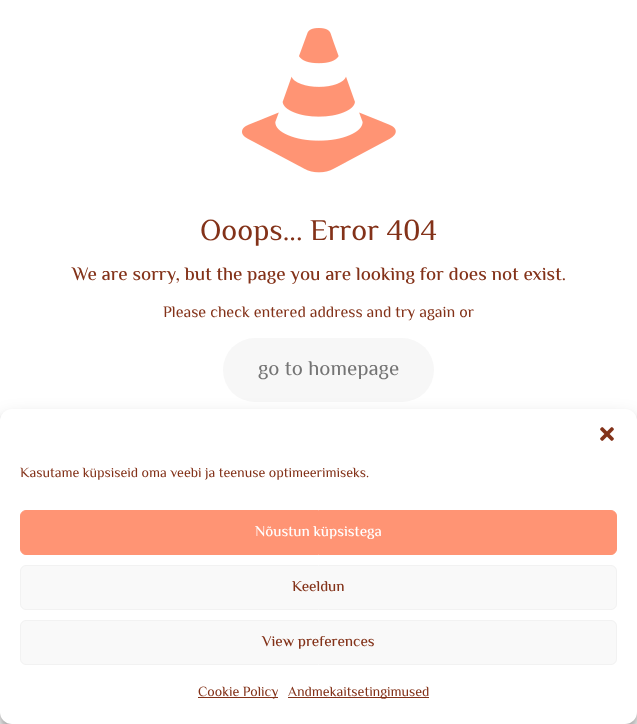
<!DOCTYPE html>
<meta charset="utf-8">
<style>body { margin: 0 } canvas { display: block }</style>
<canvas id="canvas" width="637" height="724"></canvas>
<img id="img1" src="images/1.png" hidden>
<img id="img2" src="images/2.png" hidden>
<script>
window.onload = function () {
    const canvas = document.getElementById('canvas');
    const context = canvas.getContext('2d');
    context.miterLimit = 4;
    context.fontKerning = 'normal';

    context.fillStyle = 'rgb(255, 255, 255)';
    context.fillRect(0, 0, 637, 724);
    context.drawImage(document.getElementById('img1'), 242, 28, 154, 145);
    context.fillStyle = 'rgb(247, 247, 247)';
    context.beginPath();
    context.roundRect(223, 338, 211, 64, 32);
    context.fill();
    context.fillStyle = 'rgba(0, 0, 0, 0.23)';
    context.filter = 'blur(3px)';
    context.beginPath();
    context.roundRect(0, 415, 637, 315, 12);
    context.fill();
    context.filter = 'none';
    context.fillStyle = 'rgba(0, 0, 0, 0.19)';
    context.filter = 'blur(10px)';
    context.beginPath();
    context.roundRect(0, 419, 637, 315, 12);
    context.fill();
    context.filter = 'none';
    context.fillStyle = 'rgb(255, 255, 255)';
    context.beginPath();
    context.roundRect(0, 409, 637, 315, 12);
    context.fill();
    context.drawImage(document.getElementById('img2'), 600, 427, 14, 14);
    context.fillStyle = 'rgb(255, 148, 116)';
    context.beginPath();
    context.roundRect(20.5, 510.5, 596, 44, 5.5);
    context.fill();
    context.strokeStyle = 'rgb(255, 148, 116)';
    context.stroke();
    context.fillStyle = 'rgb(249, 249, 249)';
    context.beginPath();
    context.roundRect(20.5, 565.5, 596, 44, 5.5);
    context.fill();
    context.strokeStyle = 'rgb(242, 242, 242)';
    context.stroke();
    context.beginPath();
    context.roundRect(20.5, 620.5, 596, 44, 5.5);
    context.fill();
    context.stroke();
    context.fillStyle = 'rgb(131, 50, 25)';
    context.fillRect(198, 697, 80, 1);
    context.fillRect(288, 697, 141, 1);
    context.font = '30px El Messiri';
    context.fillText('Ooops... Error 404', 200, 240);
    context.font = '500 19px El Messiri';
    context.fillText('We are sorry, but the page you are looking for does not exist.', 72, 280);
    context.font = '16px El Messiri';
    context.fillText('Please check entered address and try again or', 163, 317);
    context.font = '21px El Messiri';
    context.fillStyle = 'rgb(116, 116, 116)';
    context.fillText('go to homepage', 258, 375);
    context.font = '14px El Messiri';
    context.fillStyle = 'rgb(131, 50, 25)';
    context.fillText('Kasutame küpsiseid oma veebi ja teenuse optimeerimiseks.', 20, 477);
    context.font = '500 15px El Messiri';
    context.fillStyle = 'rgb(255, 255, 255)';
    context.fillText('Nõustun küpsistega', 255, 536);
    context.fillStyle = 'rgb(131, 50, 25)';
    context.fillText('Keeldun', 292, 591);
    context.fillText('View preferences', 262, 646);
    context.font = '14px El Messiri';
    context.fillText('Cookie Policy', 198, 696);
    context.fillText('Andmekaitsetingimused', 288, 696);
};
</script>
